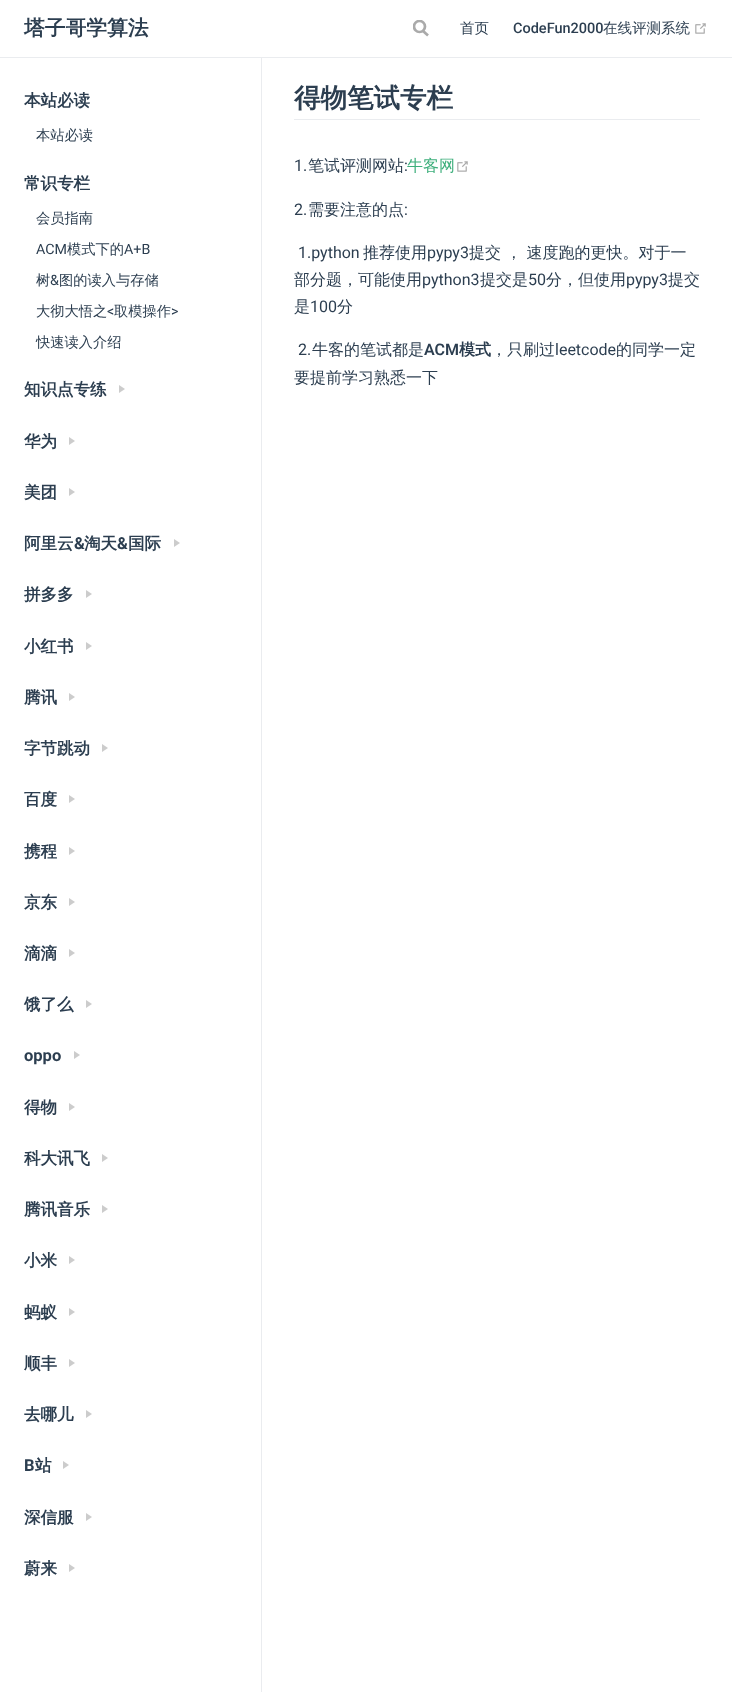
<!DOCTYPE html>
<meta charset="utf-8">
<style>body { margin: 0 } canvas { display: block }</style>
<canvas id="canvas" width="732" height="1692"></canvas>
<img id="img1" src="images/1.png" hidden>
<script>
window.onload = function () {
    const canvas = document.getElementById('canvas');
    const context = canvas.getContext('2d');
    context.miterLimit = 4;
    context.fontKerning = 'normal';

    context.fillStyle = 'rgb(255, 255, 255)';
    context.fillRect(0, 0, 732, 1692);
    context.fillStyle = 'rgb(234, 236, 239)';
    context.fillRect(0, 57, 732, 1);
    context.beginPath();
    context.moveTo(428, 35.5);
    context.lineTo(422.5, 30.5);
    context.strokeStyle = 'rgb(170, 170, 170)';
    context.lineWidth = 2.7;
    context.stroke();
    context.save();
    context.beginPath();
    context.rect(413, 20, 16, 18);
    context.clip();
    context.beginPath();
    context.arc(419.5, 26.5, 5.5, 0, 2 * Math.PI);
    context.stroke();
    context.restore();
    context.drawImage(document.getElementById('img1'), 695, 23, 11, 11);
    context.fillRect(261, 58, 1, 1634);
    context.fillStyle = 'rgb(204, 204, 204)';
    context.beginPath();
    context.moveTo(69, 496);
    context.lineTo(69, 488);
    context.lineTo(75, 492);
    context.closePath();
    context.fill();
    context.beginPath();
    context.moveTo(174, 547);
    context.lineTo(174, 539);
    context.lineTo(180, 543);
    context.closePath();
    context.fill();
    context.beginPath();
    context.moveTo(86, 598);
    context.lineTo(86, 590);
    context.lineTo(92, 594);
    context.closePath();
    context.moveTo(86, 650);
    context.lineTo(86, 642);
    context.lineTo(92, 646);
    context.closePath();
    context.fill();
    context.beginPath();
    context.moveTo(69, 803);
    context.lineTo(69, 795);
    context.lineTo(75, 799);
    context.closePath();
    context.moveTo(69, 855);
    context.lineTo(69, 847);
    context.lineTo(75, 851);
    context.closePath();
    context.fill();
    context.beginPath();
    context.moveTo(69, 906);
    context.lineTo(69, 898);
    context.lineTo(75, 902);
    context.closePath();
    context.moveTo(69, 957);
    context.lineTo(69, 949);
    context.lineTo(75, 953);
    context.closePath();
    context.fill();
    context.beginPath();
    context.moveTo(86, 1008);
    context.lineTo(86, 1000);
    context.lineTo(92, 1004);
    context.closePath();
    context.moveTo(74, 1059);
    context.lineTo(74, 1051);
    context.lineTo(80, 1055);
    context.closePath();
    context.fill();
    context.beginPath();
    context.moveTo(69, 1316);
    context.lineTo(69, 1308);
    context.lineTo(75, 1312);
    context.closePath();
    context.moveTo(69, 1367);
    context.lineTo(69, 1359);
    context.lineTo(75, 1363);
    context.closePath();
    context.fill();
    context.fillStyle = 'rgb(234, 236, 239)';
    context.fillRect(294, 119, 406, 1);
    context.drawImage(document.getElementById('img1'), 457, 161, 11, 11);
    context.font = 'bold 20.75px WenQuanYi Zen Hei';
    context.fillStyle = 'rgb(44, 62, 80)';
    context.fillText('塔子哥学算法', 24, 35);
    context.font = '500 14.5px WenQuanYi Zen Hei';
    context.fillText('首页', 460, 33);
    context.font = '500 14.5px Roboto';
    context.fillText('CodeFun2000', 513, 33);
    context.font = '500 14.5px WenQuanYi Zen Hei';
    context.fillText('在线评测系统', 603, 33);
    context.font = 'bold 16.5px WenQuanYi Zen Hei';
    context.fillText('本站必读', 24, 106);
    context.font = '500 14.25px WenQuanYi Zen Hei';
    context.fillText('本站必读', 36, 140);
    context.font = 'bold 16.5px WenQuanYi Zen Hei';
    context.fillText('常识专栏', 24, 189);
    context.font = '500 14.25px WenQuanYi Zen Hei';
    context.fillText('会员指南', 36, 223);
    context.font = '14.25px Roboto';
    context.fillText('ACM', 36, 254);
    context.font = '500 14.25px WenQuanYi Zen Hei';
    context.fillText('模式下的', 67, 254);
    context.font = '14.25px Roboto';
    context.fillText('A+B', 124, 254);
    context.font = '500 14.25px WenQuanYi Zen Hei';
    context.fillText('树', 36, 285);
    context.font = '14.25px Roboto';
    context.fillText('&', 50, 285);
    context.font = '500 14.25px WenQuanYi Zen Hei';
    context.fillText('图的读入与存储', 59, 285);
    context.fillText('大彻大悟之', 36, 316);
    context.font = '14.25px Roboto';
    context.fillText('<', 107, 316);
    context.font = '500 14.25px WenQuanYi Zen Hei';
    context.fillText('取模操作', 114, 316);
    context.font = '14.25px Roboto';
    context.fillText('>', 171, 316);
    context.font = '500 14.25px WenQuanYi Zen Hei';
    context.fillText('快速读入介绍', 36, 347);
    context.font = 'bold 16.5px WenQuanYi Zen Hei';
    context.fillText('知识点专练', 24, 395);
    context.fillStyle = 'rgb(204, 204, 204)';
    context.beginPath();
    context.moveTo(119, 393);
    context.lineTo(119, 385);
    context.lineTo(125, 389);
    context.closePath();
    context.moveTo(69, 445);
    context.lineTo(69, 437);
    context.lineTo(75, 441);
    context.closePath();
    context.fill();
    context.fillStyle = 'rgb(44, 62, 80)';
    context.fillText('华为', 24, 447);
    context.fillText('美团', 24, 498);
    context.fillText('阿里云', 24, 549);
    context.font = 'bold 16.5px Roboto';
    context.fillText('&', 74, 549);
    context.font = 'bold 16.5px WenQuanYi Zen Hei';
    context.fillText('淘天', 84, 549);
    context.font = 'bold 16.5px Roboto';
    context.fillText('&', 117, 549);
    context.font = 'bold 16.5px WenQuanYi Zen Hei';
    context.fillText('国际', 128, 549);
    context.fillText('拼多多', 24, 600);
    context.fillText('小红书', 24, 652);
    context.fillText('腾讯', 24, 703);
    context.fillText('字节跳动', 24, 754);
    context.fillStyle = 'rgb(204, 204, 204)';
    context.beginPath();
    context.moveTo(69, 701);
    context.lineTo(69, 693);
    context.lineTo(75, 697);
    context.closePath();
    context.moveTo(102, 752);
    context.lineTo(102, 744);
    context.lineTo(108, 748);
    context.closePath();
    context.fill();
    context.fillStyle = 'rgb(44, 62, 80)';
    context.fillText('百度', 24, 805);
    context.fillText('携程', 24, 857);
    context.fillText('京东', 24, 908);
    context.fillText('滴滴', 24, 959);
    context.fillText('饿了么', 24, 1010);
    context.font = 'bold 16.5px Roboto';
    context.fillText('oppo', 24, 1061);
    context.font = 'bold 16.5px WenQuanYi Zen Hei';
    context.fillText('得物', 24, 1113);
    context.fillText('科大讯飞', 24, 1164);
    context.fillStyle = 'rgb(204, 204, 204)';
    context.beginPath();
    context.moveTo(69, 1111);
    context.lineTo(69, 1103);
    context.lineTo(75, 1107);
    context.closePath();
    context.moveTo(102, 1162);
    context.lineTo(102, 1154);
    context.lineTo(108, 1158);
    context.closePath();
    context.fill();
    context.fillStyle = 'rgb(44, 62, 80)';
    context.fillText('腾讯音乐', 24, 1215);
    context.fillStyle = 'rgb(204, 204, 204)';
    context.beginPath();
    context.moveTo(102, 1213);
    context.lineTo(102, 1205);
    context.lineTo(108, 1209);
    context.closePath();
    context.moveTo(69, 1264);
    context.lineTo(69, 1256);
    context.lineTo(75, 1260);
    context.closePath();
    context.fill();
    context.fillStyle = 'rgb(44, 62, 80)';
    context.fillText('小米', 24, 1266);
    context.fillText('蚂蚁', 24, 1318);
    context.fillText('顺丰', 24, 1369);
    context.fillText('去哪儿', 24, 1420);
    context.fillStyle = 'rgb(204, 204, 204)';
    context.beginPath();
    context.moveTo(86, 1418);
    context.lineTo(86, 1410);
    context.lineTo(92, 1414);
    context.closePath();
    context.moveTo(63, 1469);
    context.lineTo(63, 1461);
    context.lineTo(69, 1465);
    context.closePath();
    context.fill();
    context.font = 'bold 16.5px Roboto';
    context.fillStyle = 'rgb(44, 62, 80)';
    context.fillText('B', 24, 1471);
    context.font = 'bold 16.5px WenQuanYi Zen Hei';
    context.fillText('站', 35, 1471);
    context.fillText('深信服', 24, 1523);
    context.fillStyle = 'rgb(204, 204, 204)';
    context.beginPath();
    context.moveTo(86, 1521);
    context.lineTo(86, 1513);
    context.lineTo(92, 1517);
    context.closePath();
    context.moveTo(69, 1572);
    context.lineTo(69, 1564);
    context.lineTo(75, 1568);
    context.closePath();
    context.fill();
    context.fillStyle = 'rgb(44, 62, 80)';
    context.fillText('蔚来', 24, 1574);
    context.font = 'bold 26.5px WenQuanYi Zen Hei';
    context.fillText('得物笔试专栏', 294, 107);
    context.font = '16px Roboto';
    context.fillText('1.', 294, 171);
    context.font = '500 16px WenQuanYi Zen Hei';
    context.fillText('笔试评测网站', 308, 171);
    context.font = '16px Roboto';
    context.fillText(':', 404, 171);
    context.font = '500 16px WenQuanYi Zen Hei';
    context.fillStyle = 'rgb(62, 175, 124)';
    context.fillText('牛客网', 407, 171);
    context.font = '16px Roboto';
    context.fillStyle = 'rgb(44, 62, 80)';
    context.fillText('2.', 294, 215);
    context.font = '500 16px WenQuanYi Zen Hei';
    context.fillText('需要注意的点', 308, 215);
    context.font = '16px Roboto';
    context.fillText(':', 404, 215);
    context.fillText('1.python', 298, 258);
    context.font = '500 16px WenQuanYi Zen Hei';
    context.fillText('推荐使用', 363, 258);
    context.font = '16px Roboto';
    context.fillText('pypy3', 427, 258);
    context.font = '500 16px WenQuanYi Zen Hei';
    context.fillText('提交 ， 速度跑的更快。对于一', 469, 258);
    context.fillText('部分题，可能使用', 294, 285);
    context.font = '16px Roboto';
    context.fillText('python3', 422, 285);
    context.font = '500 16px WenQuanYi Zen Hei';
    context.fillText('提交是', 480, 285);
    context.font = '16px Roboto';
    context.fillText('50', 528, 285);
    context.font = '500 16px WenQuanYi Zen Hei';
    context.fillText('分，但使用', 546, 285);
    context.font = '16px Roboto';
    context.fillText('pypy3', 626, 285);
    context.font = '500 16px WenQuanYi Zen Hei';
    context.fillText('提交', 668, 285);
    context.fillText('是', 294, 312);
    context.font = '16px Roboto';
    context.fillText('100', 310, 312);
    context.font = '500 16px WenQuanYi Zen Hei';
    context.fillText('分', 337, 312);
    context.font = '16px Roboto';
    context.fillText('2.', 298, 355);
    context.font = '500 16px WenQuanYi Zen Hei';
    context.fillText('牛客的笔试都是', 312, 355);
    context.font = '600 16px Roboto';
    context.fillText('ACM', 424, 355);
    context.font = 'bold 16px WenQuanYi Zen Hei';
    context.fillText('模式', 459, 355);
    context.font = '500 16px WenQuanYi Zen Hei';
    context.fillText('，只刷过', 491, 355);
    context.font = '16px Roboto';
    context.fillText('leetcode', 555, 355);
    context.font = '500 16px WenQuanYi Zen Hei';
    context.fillText('的同学一定', 616, 355);
    context.fillText('要提前学习熟悉一下', 294, 383);
};
</script>
